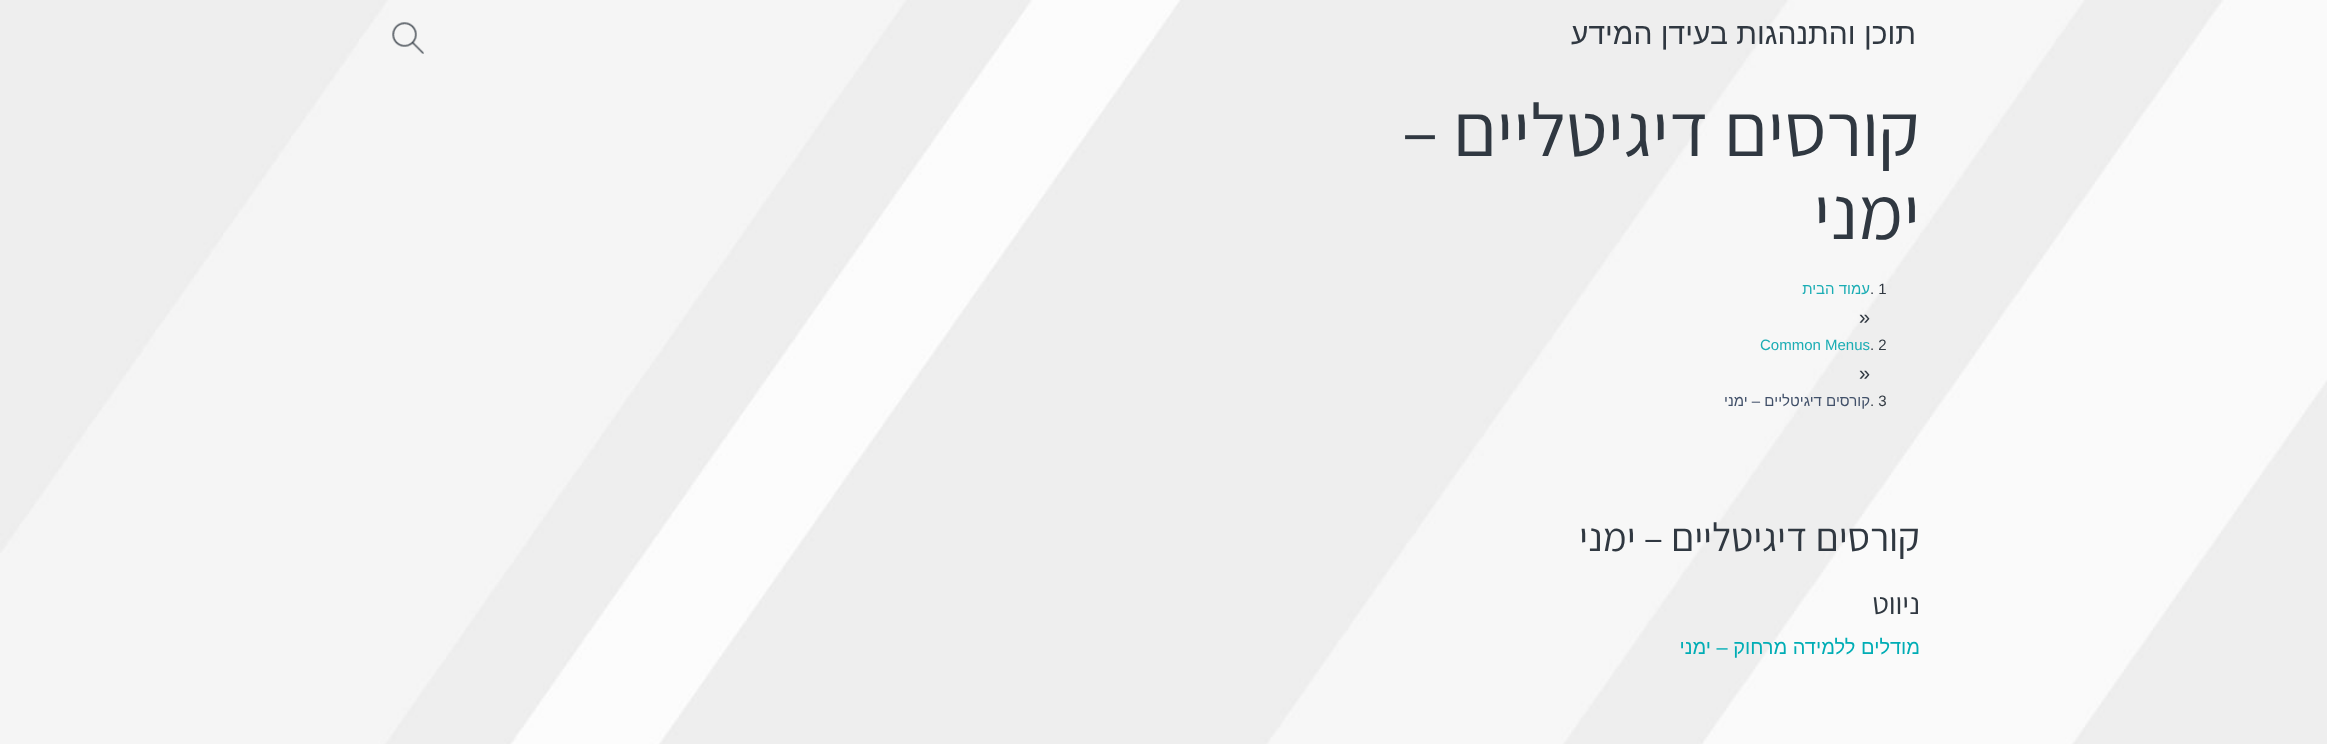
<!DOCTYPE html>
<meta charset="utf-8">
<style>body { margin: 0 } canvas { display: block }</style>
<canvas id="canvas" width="2327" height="744"></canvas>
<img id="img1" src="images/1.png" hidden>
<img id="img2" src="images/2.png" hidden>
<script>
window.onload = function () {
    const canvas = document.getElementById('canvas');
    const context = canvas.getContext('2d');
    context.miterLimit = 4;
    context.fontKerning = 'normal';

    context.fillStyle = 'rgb(255, 255, 255)';
    context.fillRect(0, 0, 2327, 744);
    context.drawImage(document.getElementById('img1'), 0, 0, 2327, 744);
    context.drawImage(document.getElementById('img2'), 392, 22, 32, 32);
    context.direction = 'rtl';
    context.font = '30px Liberation Sans';
    context.fillStyle = 'rgb(48, 56, 65)';
    context.fillText('תוכן והתנהגות בעידן המידע', 1916, 44);
    context.font = '75px Assistant';
    context.fillText('קורסים דיגיטליים –', 1920, 156);
    context.fillText('ימני', 1920, 239);
    context.direction = 'ltr';
    context.font = '15px Liberation Sans';
    context.fillText('. 1', 1870, 294);
    context.direction = 'rtl';
    context.fillStyle = 'rgb(27, 173, 180)';
    context.fillText('עמוד הבית', 1870, 294);
    context.direction = 'ltr';
    context.font = '20px Liberation Sans';
    context.fillStyle = 'rgb(48, 56, 65)';
    context.fillText('»', 1859, 324);
    context.font = '15px Liberation Sans';
    context.fillText('. 2', 1870, 350);
    context.fillStyle = 'rgb(27, 173, 180)';
    context.fillText('Common Menus', 1760, 350);
    context.font = '20px Liberation Sans';
    context.fillStyle = 'rgb(48, 56, 65)';
    context.fillText('»', 1859, 380);
    context.font = '15px Liberation Sans';
    context.fillText('. 3', 1870, 406);
    context.direction = 'rtl';
    context.fillStyle = 'rgb(65, 80, 105)';
    context.fillText('קורסים דיגיטליים – ימני', 1870, 406);
    context.font = '40px Assistant';
    context.fillStyle = 'rgb(48, 56, 65)';
    context.fillText('קורסים דיגיטליים – ימני', 1920, 551);
    context.font = '30px Assistant';
    context.fillText('ניווט', 1920, 614);
    context.font = '20px Liberation Sans';
    context.fillStyle = 'rgb(0, 173, 181)';
    context.fillText('מודלים ללמידה מרחוק – ימני', 1920, 654);
};
</script>
